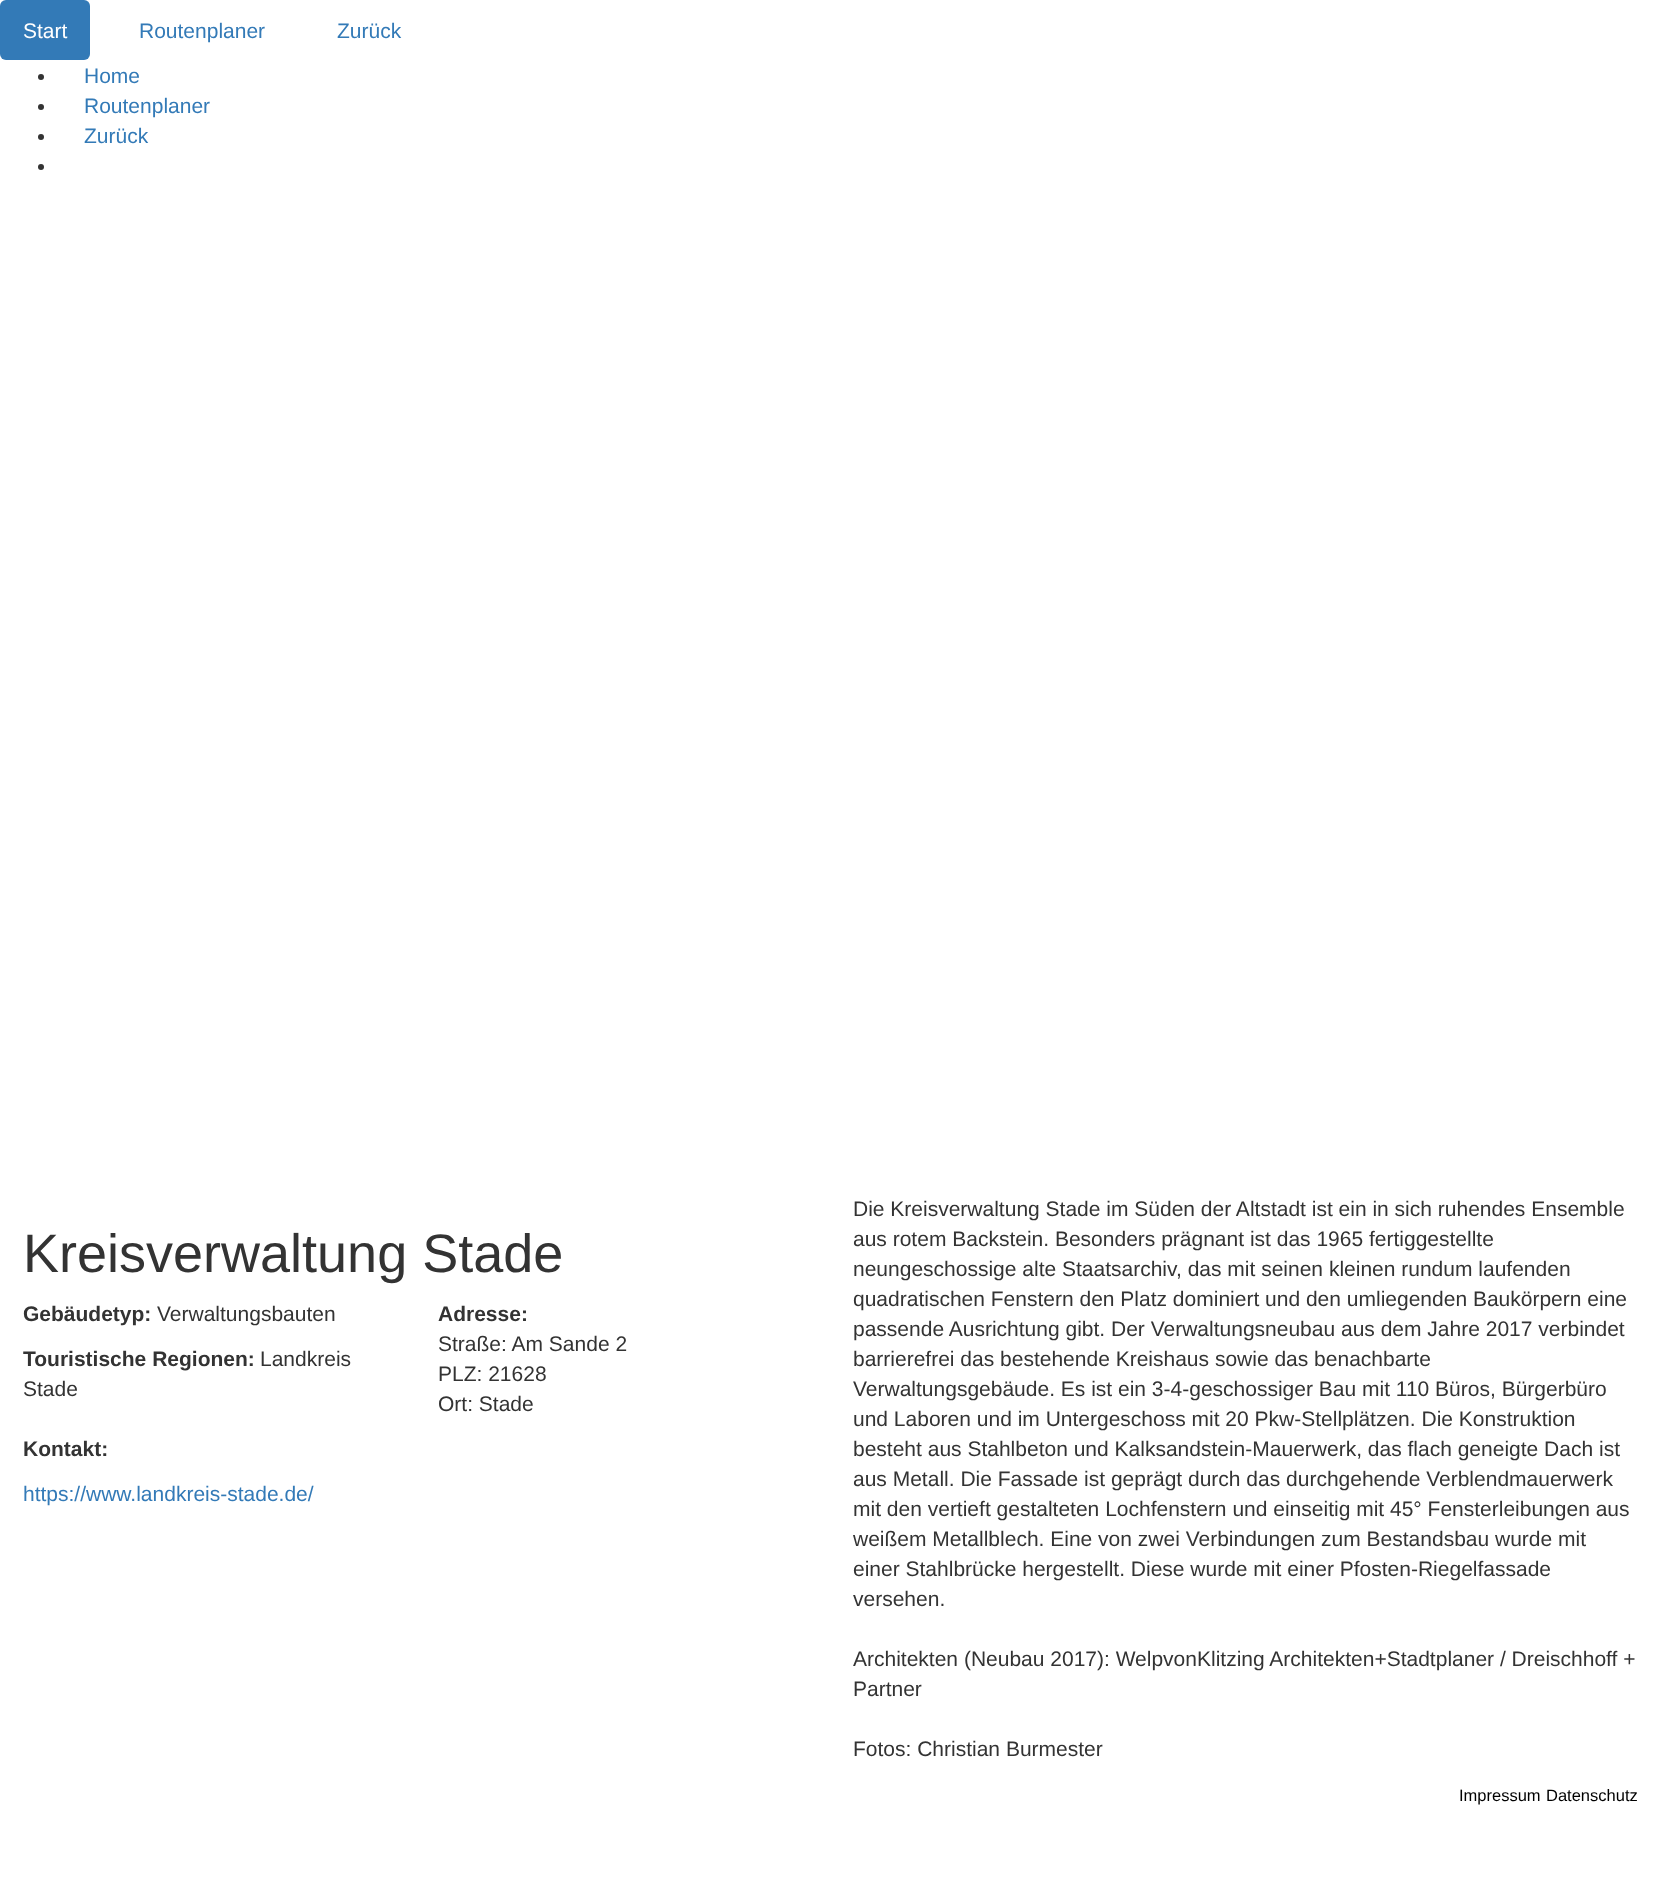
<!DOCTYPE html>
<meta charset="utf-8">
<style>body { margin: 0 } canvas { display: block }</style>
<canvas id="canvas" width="1660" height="1887"></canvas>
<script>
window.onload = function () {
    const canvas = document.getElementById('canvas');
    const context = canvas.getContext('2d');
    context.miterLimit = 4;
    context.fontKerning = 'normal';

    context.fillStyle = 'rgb(255, 255, 255)';
    context.fillRect(0, 0, 1660, 1887);
    context.fillStyle = 'rgb(51, 122, 183)';
    context.beginPath();
    context.roundRect(0, 0, 90, 60, 6);
    context.fill();
    context.fillStyle = 'rgb(51, 51, 51)';
    context.beginPath();
    context.arc(41, 77, 3, 0, 2 * Math.PI);
    context.fill();
    context.beginPath();
    context.arc(41, 107, 3, 0, 2 * Math.PI);
    context.fill();
    context.beginPath();
    context.arc(41, 137, 3, 0, 2 * Math.PI);
    context.fill();
    context.beginPath();
    context.arc(41, 167, 3, 0, 2 * Math.PI);
    context.fill();
    context.font = '21px Liberation Sans';
    context.fillStyle = 'rgb(255, 255, 255)';
    context.fillText('Start', 23, 38);
    context.fillStyle = 'rgb(51, 122, 183)';
    context.fillText('Routenplaner', 139, 38);
    context.fillText('Zurück', 337, 38);
    context.fillText('Home', 84, 83);
    context.fillText('Routenplaner', 84, 113);
    context.fillText('Zurück', 84, 143);
    context.font = '54px Liberation Sans';
    context.fillStyle = 'rgb(51, 51, 51)';
    context.fillText('Kreisverwaltung Stade', 23, 1272);
    context.font = 'bold 21px Liberation Sans';
    context.fillText('Gebäudetyp:', 23, 1321);
    context.font = '21px Liberation Sans';
    context.fillText('Verwaltungsbauten', 157, 1321);
    context.font = 'bold 21px Liberation Sans';
    context.fillText('Touristische Regionen:', 23, 1366);
    context.font = '21px Liberation Sans';
    context.fillText('Landkreis', 260, 1366);
    context.fillText('Stade', 23, 1396);
    context.font = 'bold 21px Liberation Sans';
    context.fillText('Adresse:', 438, 1321);
    context.font = '21px Liberation Sans';
    context.fillText('Straße: Am Sande 2', 438, 1351);
    context.fillText('PLZ: 21628', 438, 1381);
    context.fillText('Ort: Stade', 438, 1411);
    context.font = 'bold 21px Liberation Sans';
    context.fillText('Kontakt:', 23, 1456);
    context.font = '21px Liberation Sans';
    context.fillStyle = 'rgb(51, 122, 183)';
    context.fillText('https://www.landkreis-stade.de/', 23, 1501);
    context.fillStyle = 'rgb(51, 51, 51)';
    context.fillText('Die Kreisverwaltung Stade im Süden der Altstadt ist ein in sich ruhendes Ensemble', 853, 1216);
    context.fillText('aus rotem Backstein. Besonders prägnant ist das 1965 fertiggestellte', 853, 1246);
    context.fillText('neungeschossige alte Staatsarchiv, das mit seinen kleinen rundum laufenden', 853, 1276);
    context.fillText('quadratischen Fenstern den Platz dominiert und den umliegenden Baukörpern eine', 853, 1306);
    context.fillText('passende Ausrichtung gibt. Der Verwaltungsneubau aus dem Jahre 2017 verbindet', 853, 1336);
    context.fillText('barrierefrei das bestehende Kreishaus sowie das benachbarte', 853, 1366);
    context.fillText('Verwaltungsgebäude. Es ist ein 3-4-geschossiger Bau mit 110 Büros, Bürgerbüro', 853, 1396);
    context.fillText('und Laboren und im Untergeschoss mit 20 Pkw-Stellplätzen. Die Konstruktion', 853, 1426);
    context.fillText('besteht aus Stahlbeton und Kalksandstein-Mauerwerk, das flach geneigte Dach ist', 853, 1456);
    context.fillText('aus Metall. Die Fassade ist geprägt durch das durchgehende Verblendmauerwerk', 853, 1486);
    context.fillText('mit den vertieft gestalteten Lochfenstern und einseitig mit 45° Fensterleibungen aus', 853, 1516);
    context.fillText('weißem Metallblech. Eine von zwei Verbindungen zum Bestandsbau wurde mit', 853, 1546);
    context.fillText('einer Stahlbrücke hergestellt. Diese wurde mit einer Pfosten-Riegelfassade', 853, 1576);
    context.fillText('versehen.', 853, 1606);
    context.fillText('Architekten (Neubau 2017): WelpvonKlitzing Architekten+Stadtplaner / Dreischhoff +', 853, 1666);
    context.fillText('Partner', 853, 1696);
    context.fillText('Fotos: Christian Burmester', 853, 1756);
    context.font = '16.5px Liberation Sans';
    context.fillStyle = 'rgb(0, 0, 0)';
    context.fillText('Impressum', 1459, 1801);
    context.fillText('Datenschutz', 1546, 1801);
};
</script>
